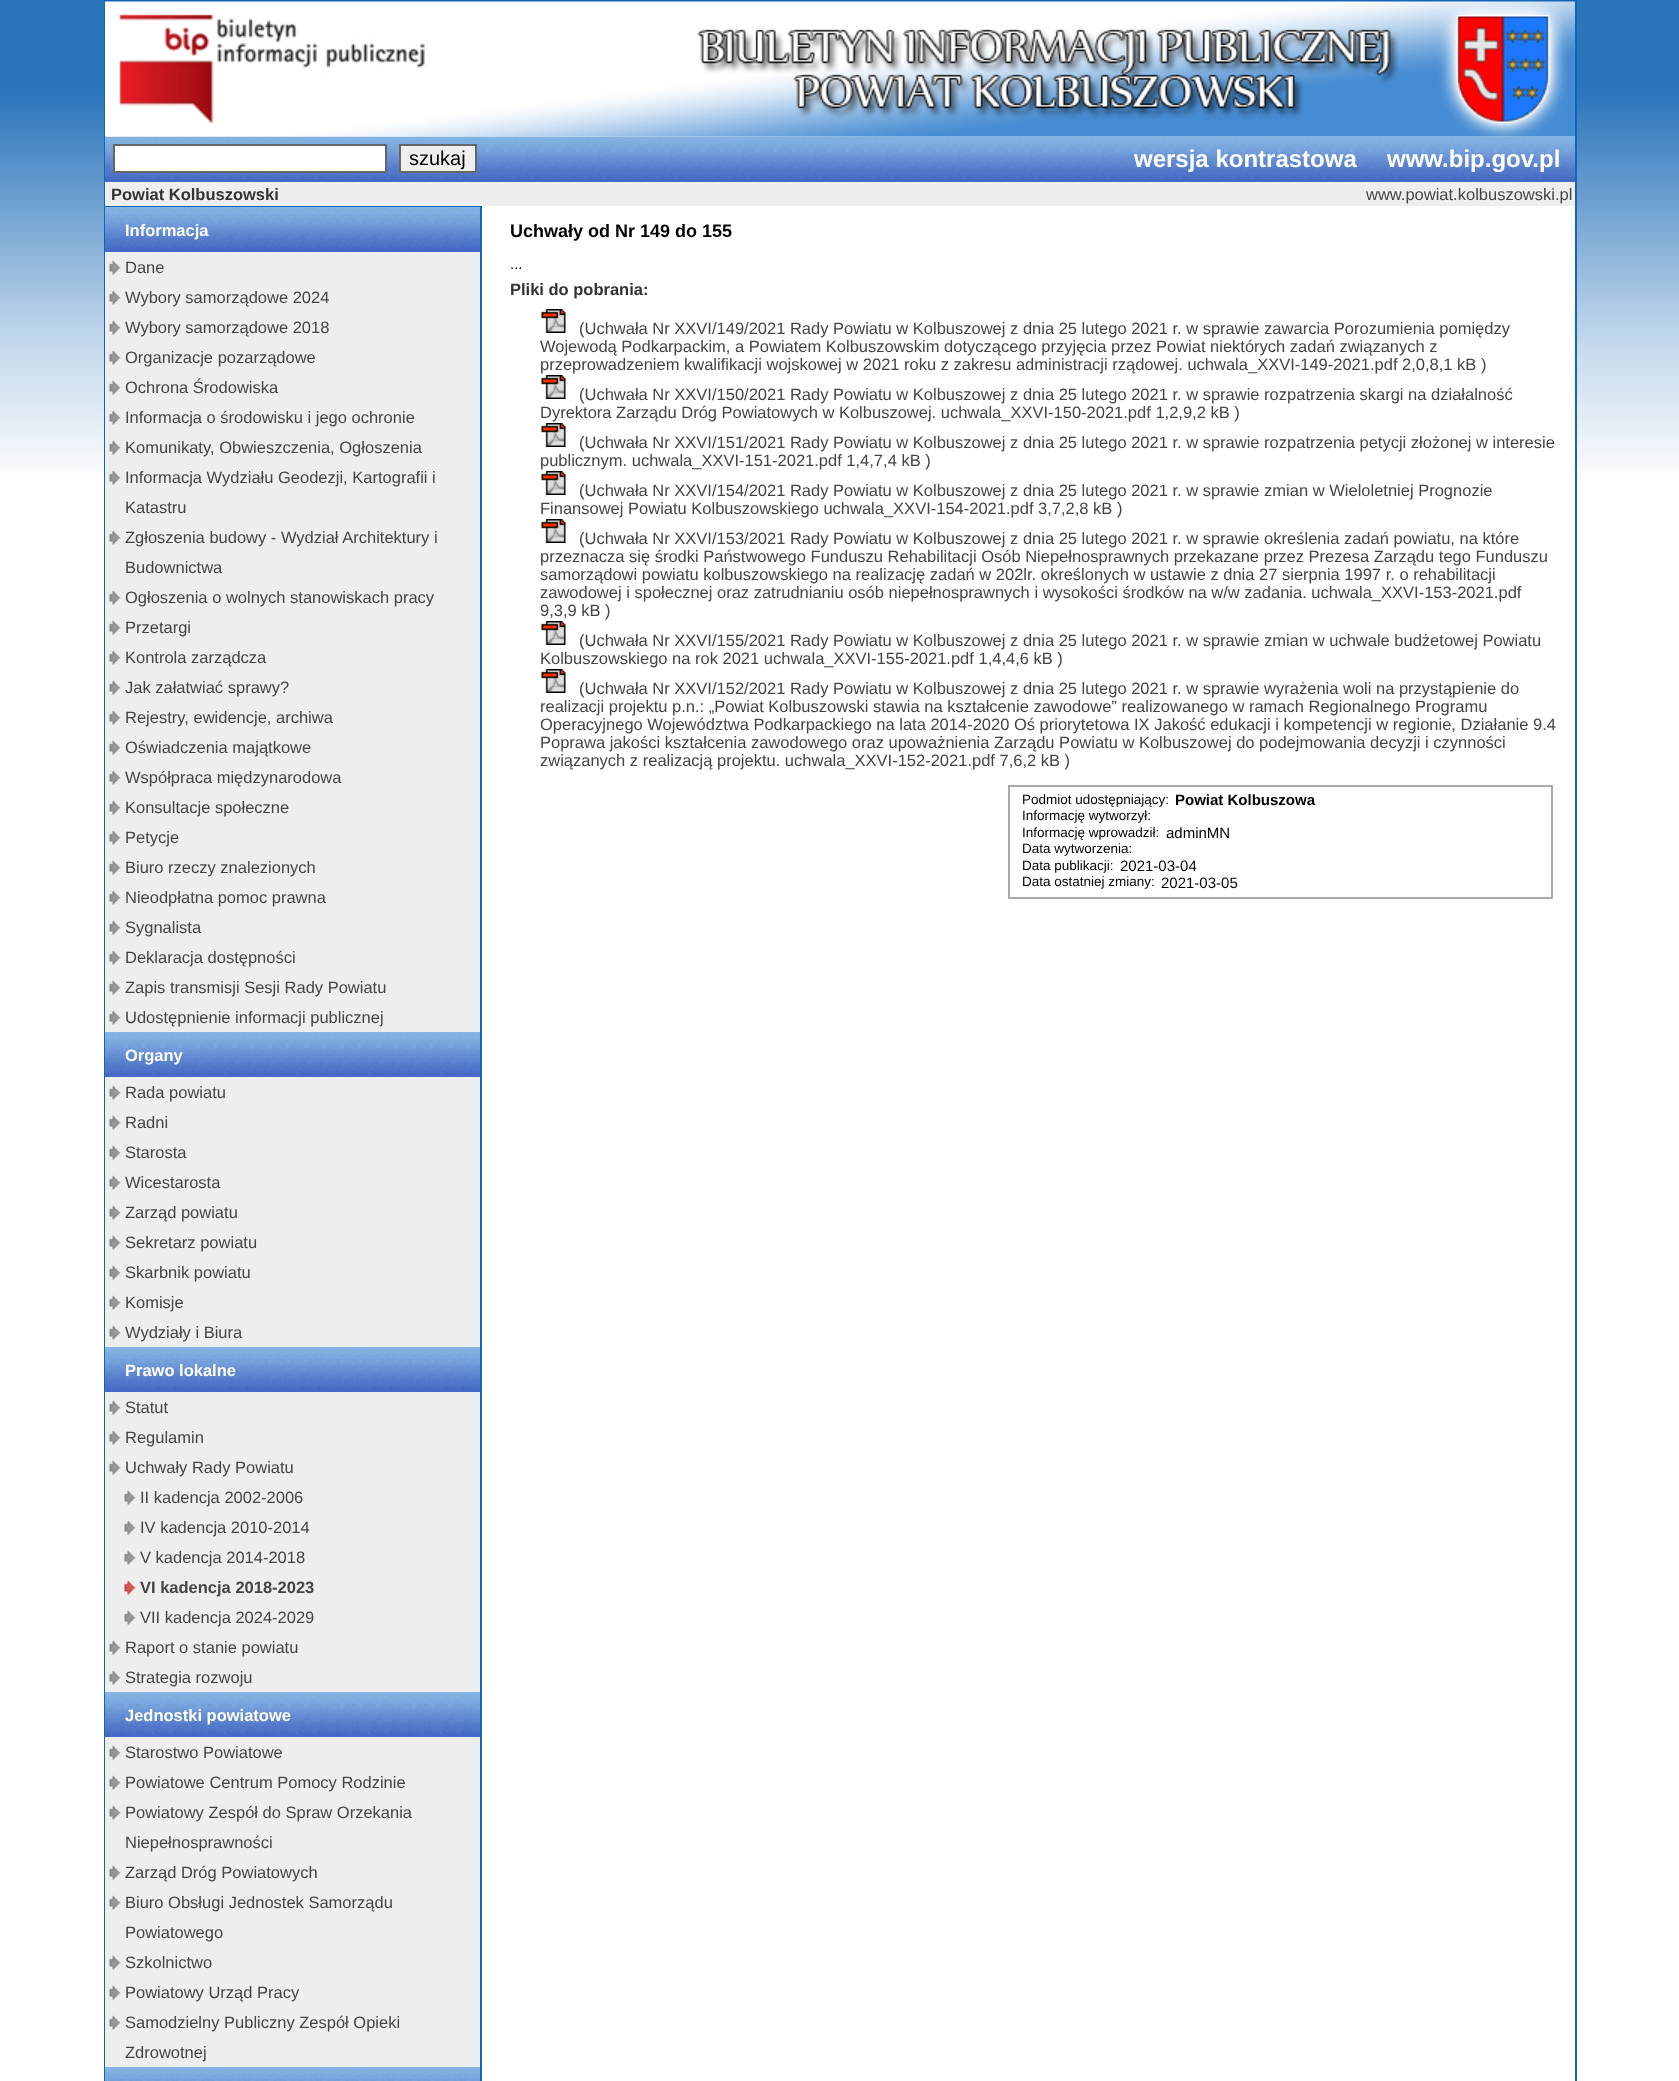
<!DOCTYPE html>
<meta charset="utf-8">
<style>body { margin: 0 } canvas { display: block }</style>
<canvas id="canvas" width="1679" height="2081"></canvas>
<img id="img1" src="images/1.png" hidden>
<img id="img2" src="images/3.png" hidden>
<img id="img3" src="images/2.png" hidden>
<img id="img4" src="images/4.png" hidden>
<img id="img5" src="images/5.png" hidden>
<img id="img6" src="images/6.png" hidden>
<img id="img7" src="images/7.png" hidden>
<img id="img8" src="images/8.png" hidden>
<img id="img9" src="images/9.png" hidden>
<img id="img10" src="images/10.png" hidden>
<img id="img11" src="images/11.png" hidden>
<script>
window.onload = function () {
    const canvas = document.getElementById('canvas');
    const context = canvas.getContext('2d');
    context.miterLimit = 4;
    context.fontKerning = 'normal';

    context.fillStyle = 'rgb(255, 255, 255)';
    context.fillRect(0, 0, 1679, 2081);
    context.drawImage(document.getElementById('img1'), 0, 0, 1679, 474);
    context.fillRect(106, 136, 1469, 338);
    context.strokeStyle = 'rgb(19, 101, 184)';
    context.lineWidth = 2;
    context.strokeRect(105, 1, 1471, 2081);
    context.drawImage(document.getElementById('img2'), 105, 136, 1470, 42);
    context.drawImage(document.getElementById('img3'), 105, 1, 1470, 136);
    context.fillStyle = 'rgb(69, 105, 196)';
    context.fillRect(105, 178, 1470, 4);
    context.fillStyle = 'rgb(255, 255, 255)';
    context.beginPath();
    context.rect(114, 145, 272, 27);
    context.fill();
    context.strokeStyle = 'rgb(102, 102, 102)';
    context.stroke();
    context.fillStyle = 'rgb(239, 239, 239)';
    context.beginPath();
    context.rect(400, 145, 76, 27);
    context.fill();
    context.stroke();
    context.fillStyle = 'rgb(238, 238, 238)';
    context.fillRect(105, 182, 1470, 24);
    context.fillRect(105, 252, 375, 1815);
    context.fillStyle = 'rgb(19, 101, 184)';
    context.fillRect(105, 206, 377, 1);
    context.fillRect(480, 206, 2, 1875);
    context.fillStyle = 'rgb(69, 105, 196)';
    context.fillRect(105, 249, 375, 3);
    context.drawImage(document.getElementById('img4'), 105, 207, 375, 42);
    context.drawImage(document.getElementById('img5'), 109, 260, 12, 15);
    context.drawImage(document.getElementById('img5'), 109, 290, 12, 15);
    context.drawImage(document.getElementById('img5'), 109, 320, 12, 15);
    context.drawImage(document.getElementById('img5'), 109, 350, 12, 15);
    context.drawImage(document.getElementById('img5'), 109, 380, 12, 15);
    context.drawImage(document.getElementById('img5'), 109, 410, 12, 15);
    context.drawImage(document.getElementById('img5'), 109, 440, 12, 15);
    context.drawImage(document.getElementById('img5'), 109, 470, 12, 15);
    context.drawImage(document.getElementById('img5'), 109, 530, 12, 15);
    context.drawImage(document.getElementById('img5'), 109, 590, 12, 15);
    context.drawImage(document.getElementById('img5'), 109, 620, 12, 15);
    context.drawImage(document.getElementById('img5'), 109, 650, 12, 15);
    context.drawImage(document.getElementById('img5'), 109, 680, 12, 15);
    context.drawImage(document.getElementById('img5'), 109, 710, 12, 15);
    context.drawImage(document.getElementById('img5'), 109, 740, 12, 15);
    context.drawImage(document.getElementById('img5'), 109, 770, 12, 15);
    context.drawImage(document.getElementById('img5'), 109, 800, 12, 15);
    context.drawImage(document.getElementById('img5'), 109, 830, 12, 15);
    context.drawImage(document.getElementById('img5'), 109, 860, 12, 15);
    context.drawImage(document.getElementById('img5'), 109, 890, 12, 15);
    context.drawImage(document.getElementById('img5'), 109, 920, 12, 15);
    context.drawImage(document.getElementById('img5'), 109, 950, 12, 15);
    context.drawImage(document.getElementById('img5'), 109, 980, 12, 15);
    context.drawImage(document.getElementById('img5'), 109, 1010, 12, 15);
    context.fillRect(105, 1074, 375, 3);
    context.drawImage(document.getElementById('img6'), 105, 1032, 375, 42);
    context.drawImage(document.getElementById('img5'), 109, 1085, 12, 15);
    context.drawImage(document.getElementById('img5'), 109, 1115, 12, 15);
    context.drawImage(document.getElementById('img5'), 109, 1145, 12, 15);
    context.drawImage(document.getElementById('img5'), 109, 1175, 12, 15);
    context.drawImage(document.getElementById('img5'), 109, 1205, 12, 15);
    context.drawImage(document.getElementById('img5'), 109, 1235, 12, 15);
    context.drawImage(document.getElementById('img5'), 109, 1265, 12, 15);
    context.drawImage(document.getElementById('img5'), 109, 1295, 12, 15);
    context.drawImage(document.getElementById('img5'), 109, 1325, 12, 15);
    context.fillRect(105, 1389, 375, 3);
    context.drawImage(document.getElementById('img7'), 105, 1347, 375, 42);
    context.drawImage(document.getElementById('img5'), 109, 1400, 12, 15);
    context.drawImage(document.getElementById('img5'), 109, 1430, 12, 15);
    context.drawImage(document.getElementById('img5'), 109, 1460, 12, 15);
    context.drawImage(document.getElementById('img5'), 124, 1490, 12, 15);
    context.drawImage(document.getElementById('img5'), 124, 1520, 12, 15);
    context.drawImage(document.getElementById('img5'), 124, 1550, 12, 15);
    context.drawImage(document.getElementById('img8'), 124, 1580, 12, 15);
    context.drawImage(document.getElementById('img5'), 124, 1610, 12, 15);
    context.drawImage(document.getElementById('img5'), 109, 1640, 12, 15);
    context.drawImage(document.getElementById('img5'), 109, 1670, 12, 15);
    context.fillRect(105, 1734, 375, 3);
    context.drawImage(document.getElementById('img9'), 105, 1692, 375, 42);
    context.drawImage(document.getElementById('img5'), 109, 1745, 12, 15);
    context.drawImage(document.getElementById('img5'), 109, 1775, 12, 15);
    context.drawImage(document.getElementById('img5'), 109, 1805, 12, 15);
    context.drawImage(document.getElementById('img5'), 109, 1865, 12, 15);
    context.drawImage(document.getElementById('img5'), 109, 1895, 12, 15);
    context.drawImage(document.getElementById('img5'), 109, 1955, 12, 15);
    context.drawImage(document.getElementById('img5'), 109, 1985, 12, 15);
    context.drawImage(document.getElementById('img5'), 109, 2015, 12, 15);
    context.drawImage(document.getElementById('img10'), 105, 2067, 375, 14);
    context.drawImage(document.getElementById('img11'), 541, 309, 25, 24);
    context.drawImage(document.getElementById('img11'), 541, 375, 25, 24);
    context.drawImage(document.getElementById('img11'), 541, 423, 25, 24);
    context.drawImage(document.getElementById('img11'), 541, 471, 25, 24);
    context.drawImage(document.getElementById('img11'), 541, 519, 25, 24);
    context.drawImage(document.getElementById('img11'), 541, 621, 25, 24);
    context.drawImage(document.getElementById('img11'), 541, 669, 25, 24);
    context.strokeStyle = 'rgb(170, 170, 170)';
    context.strokeRect(1009, 786, 543, 112);
    context.font = '20px Liberation Sans';
    context.fillStyle = 'rgb(0, 0, 0)';
    context.fillText('szukaj', 409, 165);
    context.font = 'bold 24px Liberation Sans';
    context.fillStyle = 'rgb(255, 255, 255)';
    context.fillText('wersja kontrastowa', 1134, 167);
    context.fillText('www.bip.gov.pl', 1387, 167);
    context.font = 'bold 16.5px Liberation Sans';
    context.fillStyle = 'rgb(51, 51, 51)';
    context.fillText('Powiat Kolbuszowski', 111, 200);
    context.font = '16.5px Liberation Sans';
    context.fillStyle = 'rgb(68, 68, 68)';
    context.fillText('www.powiat.kolbuszowski.pl', 1366, 200);
    context.font = 'bold 16.5px Liberation Sans';
    context.fillStyle = 'rgb(255, 255, 255)';
    context.fillText('Informacja', 125, 236);
    context.font = '16.5px Liberation Sans';
    context.fillStyle = 'rgb(68, 68, 68)';
    context.fillText('Dane', 125, 273);
    context.fillText('Wybory samorządowe 2024', 125, 303);
    context.fillText('Wybory samorządowe 2018', 125, 333);
    context.fillText('Organizacje pozarządowe', 125, 363);
    context.fillText('Ochrona Środowiska', 125, 393);
    context.fillText('Informacja o środowisku i jego ochronie', 125, 423);
    context.fillText('Komunikaty, Obwieszczenia, Ogłoszenia', 125, 453);
    context.fillText('Informacja Wydziału Geodezji, Kartografii i', 125, 483);
    context.fillText('Katastru', 125, 513);
    context.fillText('Zgłoszenia budowy - Wydział Architektury i', 125, 543);
    context.fillText('Budownictwa', 125, 573);
    context.fillText('Ogłoszenia o wolnych stanowiskach pracy', 125, 603);
    context.fillText('Przetargi', 125, 633);
    context.fillText('Kontrola zarządcza', 125, 663);
    context.fillText('Jak załatwiać sprawy?', 125, 693);
    context.fillText('Rejestry, ewidencje, archiwa', 125, 723);
    context.fillText('Oświadczenia majątkowe', 125, 753);
    context.fillText('Współpraca międzynarodowa', 125, 783);
    context.fillText('Konsultacje społeczne', 125, 813);
    context.fillText('Petycje', 125, 843);
    context.fillText('Biuro rzeczy znalezionych', 125, 873);
    context.fillText('Nieodpłatna pomoc prawna', 125, 903);
    context.fillText('Sygnalista', 125, 933);
    context.fillText('Deklaracja dostępności', 125, 963);
    context.fillText('Zapis transmisji Sesji Rady Powiatu', 125, 993);
    context.fillText('Udostępnienie informacji publicznej', 125, 1023);
    context.font = 'bold 16.5px Liberation Sans';
    context.fillStyle = 'rgb(255, 255, 255)';
    context.fillText('Organy', 125, 1061);
    context.font = '16.5px Liberation Sans';
    context.fillStyle = 'rgb(68, 68, 68)';
    context.fillText('Rada powiatu', 125, 1098);
    context.fillText('Radni', 125, 1128);
    context.fillText('Starosta', 125, 1158);
    context.fillText('Wicestarosta', 125, 1188);
    context.fillText('Zarząd powiatu', 125, 1218);
    context.fillText('Sekretarz powiatu', 125, 1248);
    context.fillText('Skarbnik powiatu', 125, 1278);
    context.fillText('Komisje', 125, 1308);
    context.fillText('Wydziały i Biura', 125, 1338);
    context.font = 'bold 16.5px Liberation Sans';
    context.fillStyle = 'rgb(255, 255, 255)';
    context.fillText('Prawo lokalne', 125, 1376);
    context.font = '16.5px Liberation Sans';
    context.fillStyle = 'rgb(68, 68, 68)';
    context.fillText('Statut', 125, 1413);
    context.fillText('Regulamin', 125, 1443);
    context.fillText('Uchwały Rady Powiatu', 125, 1473);
    context.fillText('II kadencja 2002-2006', 140, 1503);
    context.fillText('IV kadencja 2010-2014', 140, 1533);
    context.fillText('V kadencja 2014-2018', 140, 1563);
    context.font = 'bold 16.5px Liberation Sans';
    context.fillText('VI kadencja 2018-2023', 140, 1593);
    context.font = '16.5px Liberation Sans';
    context.fillText('VII kadencja 2024-2029', 140, 1623);
    context.fillText('Raport o stanie powiatu', 125, 1653);
    context.fillText('Strategia rozwoju', 125, 1683);
    context.font = 'bold 16.5px Liberation Sans';
    context.fillStyle = 'rgb(255, 255, 255)';
    context.fillText('Jednostki powiatowe', 125, 1721);
    context.font = '16.5px Liberation Sans';
    context.fillStyle = 'rgb(68, 68, 68)';
    context.fillText('Starostwo Powiatowe', 125, 1758);
    context.fillText('Powiatowe Centrum Pomocy Rodzinie', 125, 1788);
    context.fillText('Powiatowy Zespół do Spraw Orzekania', 125, 1818);
    context.fillText('Niepełnosprawności', 125, 1848);
    context.fillText('Zarząd Dróg Powiatowych', 125, 1878);
    context.fillText('Biuro Obsługi Jednostek Samorządu', 125, 1908);
    context.fillText('Powiatowego', 125, 1938);
    context.fillText('Szkolnictwo', 125, 1968);
    context.fillText('Powiatowy Urząd Pracy', 125, 1998);
    context.fillText('Samodzielny Publiczny Zespół Opieki', 125, 2028);
    context.fillText('Zdrowotnej', 125, 2058);
    context.font = 'bold 18px Liberation Sans';
    context.fillStyle = 'rgb(0, 0, 0)';
    context.fillText('Uchwały od Nr 149 do 155', 510, 237);
    context.font = '15px Liberation Sans';
    context.fillText('...', 510, 269);
    context.font = 'bold 16.5px Liberation Sans';
    context.fillStyle = 'rgb(51, 51, 51)';
    context.fillText('Pliki do pobrania:', 510, 295);
    context.font = '16.5px Liberation Sans';
    context.fillStyle = 'rgb(68, 68, 68)';
    context.fillText('(Uchwała Nr XXVI/149/2021 Rady Powiatu w Kolbuszowej z dnia 25 lutego 2021 r. w sprawie zawarcia Porozumienia pomiędzy', 579, 334);
    context.fillText('Wojewodą Podkarpackim, a Powiatem Kolbuszowskim dotyczącego przyjęcia przez Powiat niektórych zadań związanych z', 540, 352);
    context.fillText('przeprowadzeniem kwalifikacji wojskowej w 2021 roku z zakresu administracji rządowej. uchwala_XXVI-149-2021.pdf 2,0,8,1 kB )', 540, 370);
    context.fillText('(Uchwała Nr XXVI/150/2021 Rady Powiatu w Kolbuszowej z dnia 25 lutego 2021 r. w sprawie rozpatrzenia skargi na działalność', 579, 400);
    context.fillText('Dyrektora Zarządu Dróg Powiatowych w Kolbuszowej. uchwala_XXVI-150-2021.pdf 1,2,9,2 kB )', 540, 418);
    context.fillText('(Uchwała Nr XXVI/151/2021 Rady Powiatu w Kolbuszowej z dnia 25 lutego 2021 r. w sprawie rozpatrzenia petycji złożonej w interesie', 579, 448);
    context.fillText('publicznym. uchwala_XXVI-151-2021.pdf 1,4,7,4 kB )', 540, 466);
    context.fillText('(Uchwała Nr XXVI/154/2021 Rady Powiatu w Kolbuszowej z dnia 25 lutego 2021 r. w sprawie zmian w Wieloletniej Prognozie', 579, 496);
    context.fillText('Finansowej Powiatu Kolbuszowskiego uchwala_XXVI-154-2021.pdf 3,7,2,8 kB )', 540, 514);
    context.fillText('(Uchwała Nr XXVI/153/2021 Rady Powiatu w Kolbuszowej z dnia 25 lutego 2021 r. w sprawie określenia zadań powiatu, na które', 579, 544);
    context.fillText('przeznacza się środki Państwowego Funduszu Rehabilitacji Osób Niepełnosprawnych przekazane przez Prezesa Zarządu tego Funduszu', 540, 562);
    context.fillText('samorządowi powiatu kolbuszowskiego na realizację zadań w 202lr. określonych w ustawie z dnia 27 sierpnia 1997 r. o rehabilitacji', 540, 580);
    context.fillText('zawodowej i społecznej oraz zatrudnianiu osób niepełnosprawnych i wysokości środków na w/w zadania. uchwala_XXVI-153-2021.pdf', 540, 598);
    context.fillText('9,3,9 kB )', 540, 616);
    context.fillText('(Uchwała Nr XXVI/155/2021 Rady Powiatu w Kolbuszowej z dnia 25 lutego 2021 r. w sprawie zmian w uchwale budżetowej Powiatu', 579, 646);
    context.fillText('Kolbuszowskiego na rok 2021 uchwala_XXVI-155-2021.pdf 1,4,4,6 kB )', 540, 664);
    context.fillText('(Uchwała Nr XXVI/152/2021 Rady Powiatu w Kolbuszowej z dnia 25 lutego 2021 r. w sprawie wyrażenia woli na przystąpienie do', 579, 694);
    context.fillText('realizacji projektu p.n.: „Powiat Kolbuszowski stawia na kształcenie zawodowe” realizowanego w ramach Regionalnego Programu', 540, 712);
    context.fillText('Operacyjnego Województwa Podkarpackiego na lata 2014-2020 Oś priorytetowa IX Jakość edukacji i kompetencji w regionie, Działanie 9.4', 540, 730);
    context.fillText('Poprawa jakości kształcenia zawodowego oraz upoważnienia Zarządu Powiatu w Kolbuszowej do podejmowania decyzji i czynności', 540, 748);
    context.fillText('związanych z realizacją projektu. uchwala_XXVI-152-2021.pdf 7,6,2 kB )', 540, 766);
    context.font = '13.5px Liberation Sans';
    context.fillStyle = 'rgb(0, 0, 0)';
    context.fillText('Podmiot udostępniający:', 1022, 804);
    context.font = 'bold 15px Liberation Sans';
    context.fillText('Powiat Kolbuszowa', 1175, 805);
    context.font = '13.5px Liberation Sans';
    context.fillText('Informację wytworzył:', 1022, 820);
    context.fillText('Informację wprowadził:', 1022, 837);
    context.font = '15px Liberation Sans';
    context.fillText('adminMN', 1166, 838);
    context.font = '13.5px Liberation Sans';
    context.fillText('Data wytworzenia:', 1022, 853);
    context.fillText('Data publikacji:', 1022, 870);
    context.font = '15px Liberation Sans';
    context.fillText('2021-03-04', 1120, 871);
    context.font = '13.5px Liberation Sans';
    context.fillText('Data ostatniej zmiany:', 1022, 886);
    context.font = '15px Liberation Sans';
    context.fillText('2021-03-05', 1161, 888);
};
</script>
